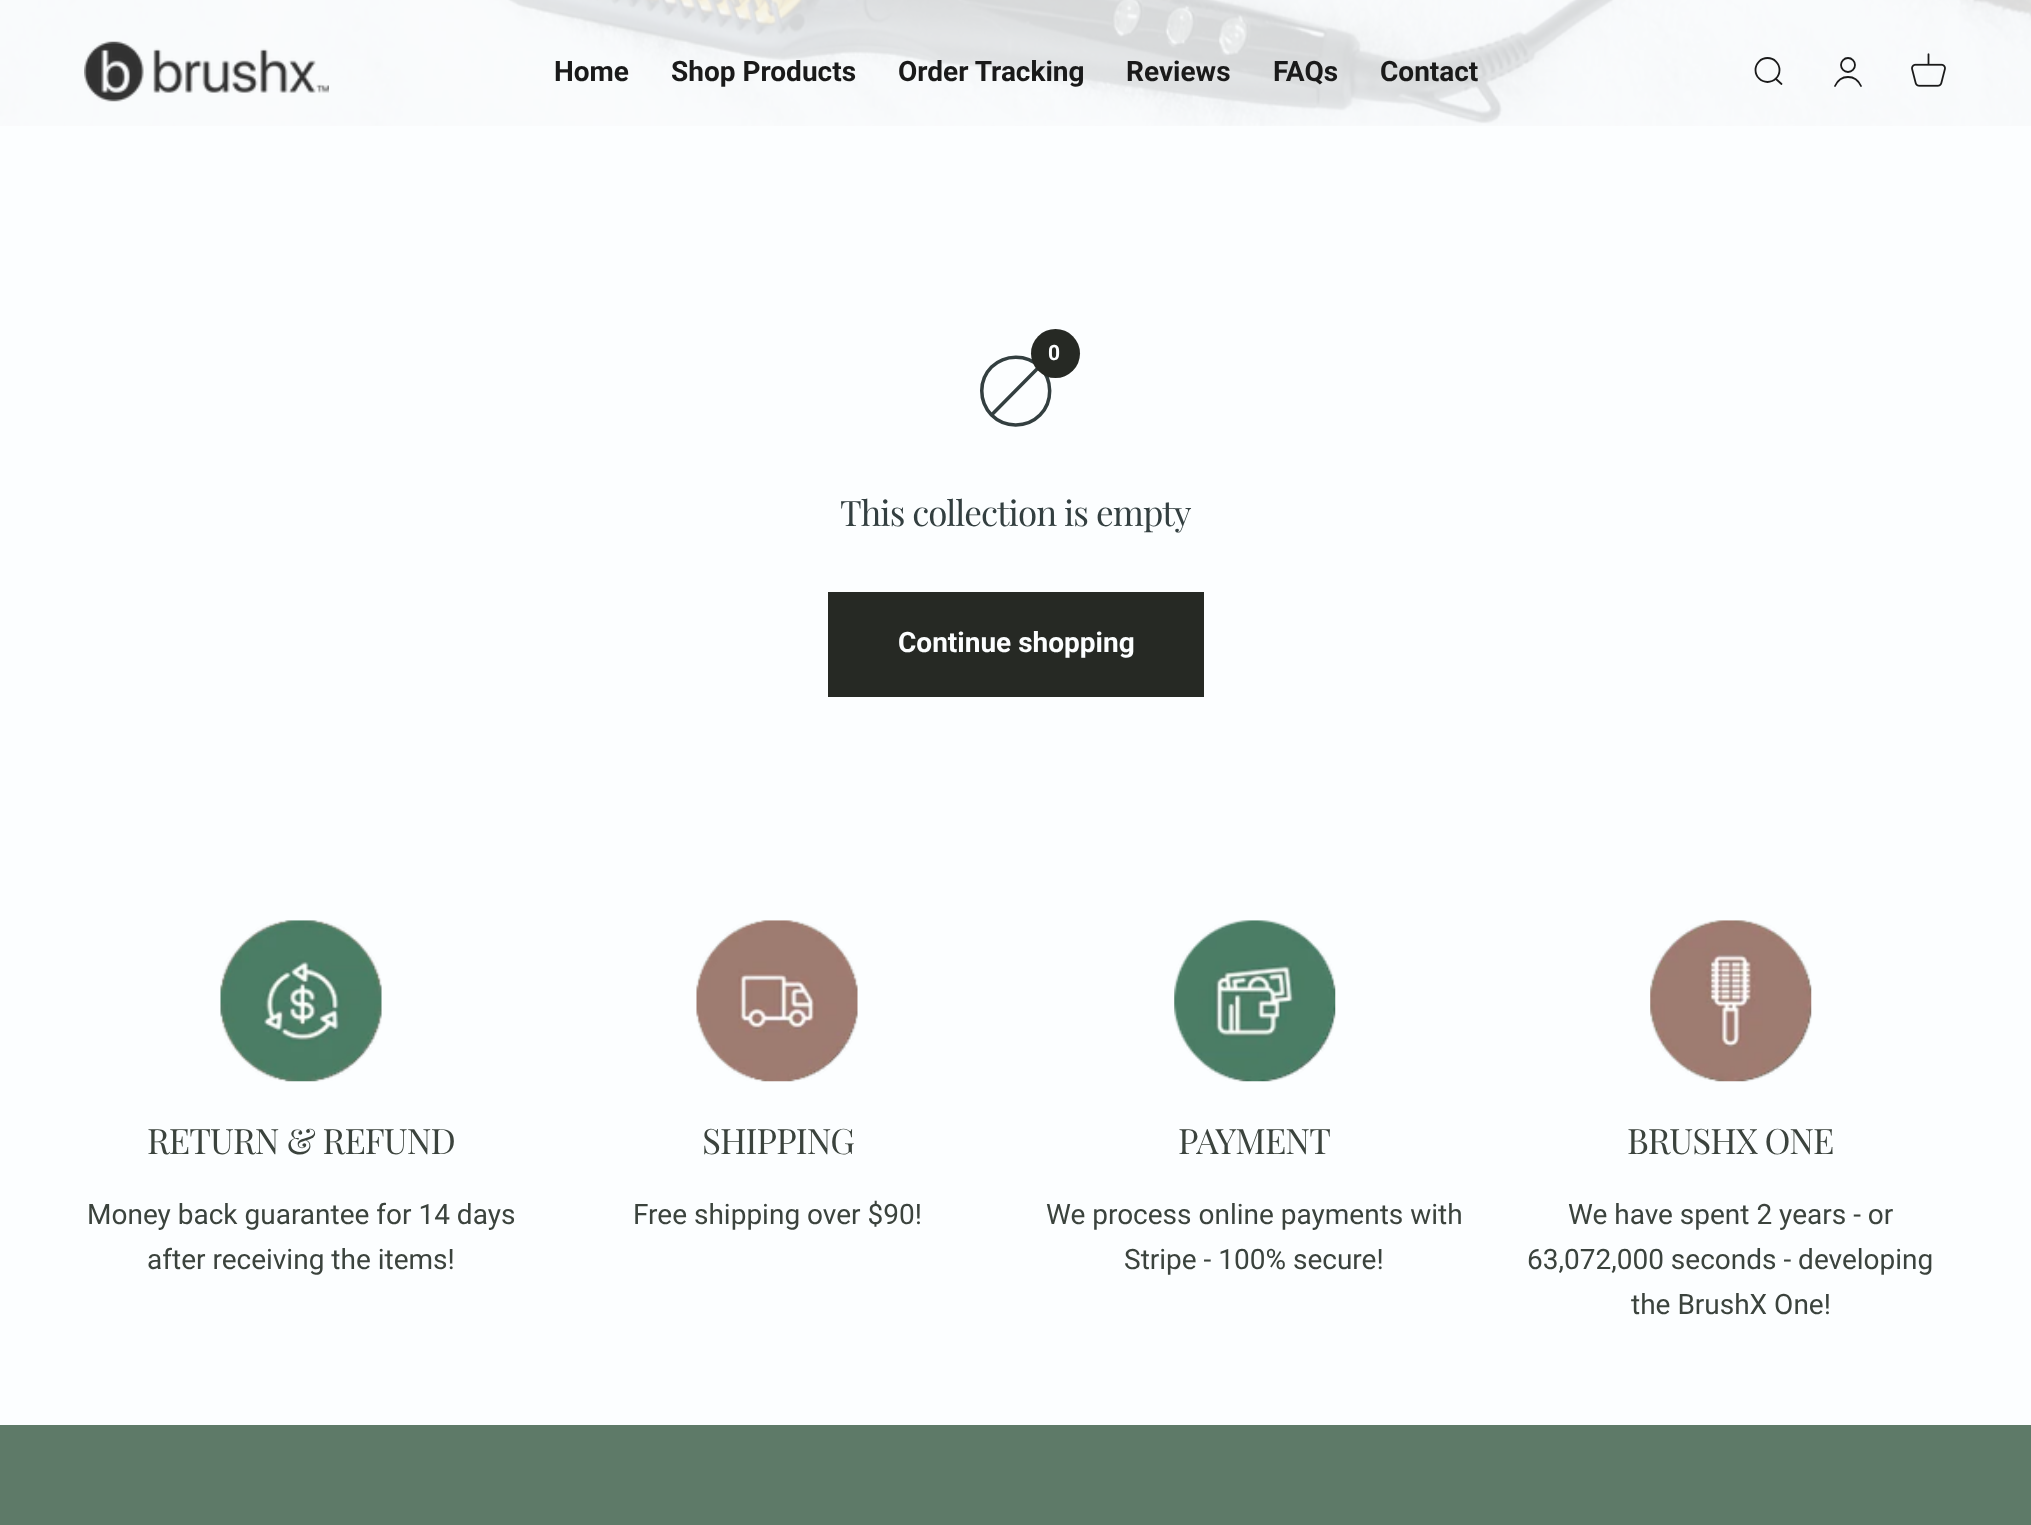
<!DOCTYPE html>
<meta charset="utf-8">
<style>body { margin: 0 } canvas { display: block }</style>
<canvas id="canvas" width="2031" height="1525"></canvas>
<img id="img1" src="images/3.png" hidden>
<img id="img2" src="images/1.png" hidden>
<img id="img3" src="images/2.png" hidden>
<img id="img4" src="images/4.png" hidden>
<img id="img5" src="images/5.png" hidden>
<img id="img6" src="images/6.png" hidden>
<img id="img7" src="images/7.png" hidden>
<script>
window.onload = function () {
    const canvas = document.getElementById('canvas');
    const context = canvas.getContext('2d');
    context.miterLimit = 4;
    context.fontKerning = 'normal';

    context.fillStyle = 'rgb(252, 254, 255)';
    context.fillRect(0, 0, 2031, 1525);
    context.drawImage(document.getElementById('img1'), 0, 0, 2031, 126);
    context.drawImage(document.getElementById('img2'), 84, 41, 245, 61);
    context.beginPath();
    context.arc(1767.5, 70, 12, 0, 2 * Math.PI);
    context.strokeStyle = 'rgb(26, 26, 26)';
    context.lineWidth = 1.8;
    context.stroke();
    context.beginPath();
    context.moveTo(1776, 79);
    context.lineTo(1781.5, 84);
    context.lineCap = 'round';
    context.lineJoin = 'round';
    context.stroke();
    context.beginPath();
    context.arc(1848, 65, 7, 0, 2 * Math.PI);
    context.stroke();
    context.beginPath();
    context.moveTo(1835, 86);
    context.bezierCurveTo(1840.5, 74, 1855.5, 74, 1861, 86);
    context.lineJoin = 'miter';
    context.stroke();
    context.drawImage(document.getElementById('img3'), 1911, 53, 35, 34);
    context.beginPath();
    context.moveTo(1039.5, 366.5);
    context.bezierCurveTo(1026.5, 354, 1005, 354, 991.5, 367);
    context.bezierCurveTo(978.5, 380, 978.5, 401.5, 991.5, 415);
    context.moveTo(1039.5, 366.5);
    context.bezierCurveTo(1053, 379.5, 1053, 402, 1040, 415);
    context.bezierCurveTo(1026.5, 428.5, 1004.5, 428, 991.5, 415);
    context.moveTo(1039.5, 366.5);
    context.lineTo(991.5, 415);
    context.strokeStyle = 'rgb(51, 63, 64)';
    context.lineWidth = 3.5;
    context.lineCap = 'butt';
    context.stroke();
    context.fillStyle = 'rgb(38, 41, 36)';
    context.beginPath();
    context.arc(1055.5, 353.5, 24.5, 0, 2 * Math.PI);
    context.fill();
    context.fillRect(828, 592, 376, 105);
    context.drawImage(document.getElementById('img4'), 220, 920, 162, 162);
    context.drawImage(document.getElementById('img5'), 696, 920, 162, 162);
    context.drawImage(document.getElementById('img6'), 1174, 920, 162, 162);
    context.drawImage(document.getElementById('img7'), 1650, 920, 162, 162);
    context.fillStyle = 'rgb(94, 122, 104)';
    context.fillRect(0, 1425, 2031, 100);
    context.font = 'bold 28px Roboto';
    context.fillStyle = 'rgb(26, 26, 26)';
    context.fillText('Home', 554, 81);
    context.fillText('Shop Products', 671, 81);
    context.fillText('Order Tracking', 898, 81);
    context.fillText('Reviews', 1126, 81);
    context.fillText('FAQs', 1273, 81);
    context.fillText('Contact', 1380, 81);
    context.font = 'bold 21px Roboto';
    context.fillStyle = 'rgb(252, 254, 255)';
    context.fillText('0', 1048, 360);
    context.letterSpacing = '-0.9px';
    context.font = '35px Playfair Display';
    context.fillStyle = 'rgb(51, 63, 64)';
    context.fillText('This collection is empty', 840, 526);
    context.letterSpacing = '0px';
    context.font = 'bold 28px Roboto';
    context.fillStyle = 'rgb(252, 254, 255)';
    context.fillText('Continue shopping', 898, 652);
    context.letterSpacing = '-0.9px';
    context.font = '35px Playfair Display';
    context.fillStyle = 'rgb(59, 67, 61)';
    context.fillText('RETURN & REFUND', 147, 1154);
    context.letterSpacing = '0px';
    context.font = '28px Roboto';
    context.fillText('Money back guarantee for 14 days', 87, 1224);
    context.fillText('after receiving the items!', 147, 1269);
    context.letterSpacing = '-0.9px';
    context.font = '35px Playfair Display';
    context.fillText('SHIPPING', 702, 1154);
    context.letterSpacing = '0px';
    context.font = '28px Roboto';
    context.fillText('Free shipping over $90!', 633, 1224);
    context.letterSpacing = '-0.9px';
    context.font = '35px Playfair Display';
    context.fillText('PAYMENT', 1178, 1154);
    context.letterSpacing = '0px';
    context.font = '28px Roboto';
    context.fillText('We process online payments with', 1046, 1224);
    context.fillText('Stripe - 100% secure!', 1124, 1269);
    context.letterSpacing = '-0.9px';
    context.font = '35px Playfair Display';
    context.fillText('BRUSHX ONE', 1627, 1154);
    context.letterSpacing = '0px';
    context.font = '28px Roboto';
    context.fillText('We have spent 2 years - or', 1568, 1224);
    context.fillText('63,072,000 seconds - developing', 1527, 1269);
    context.fillText('the BrushX One!', 1631, 1314);
};
</script>
